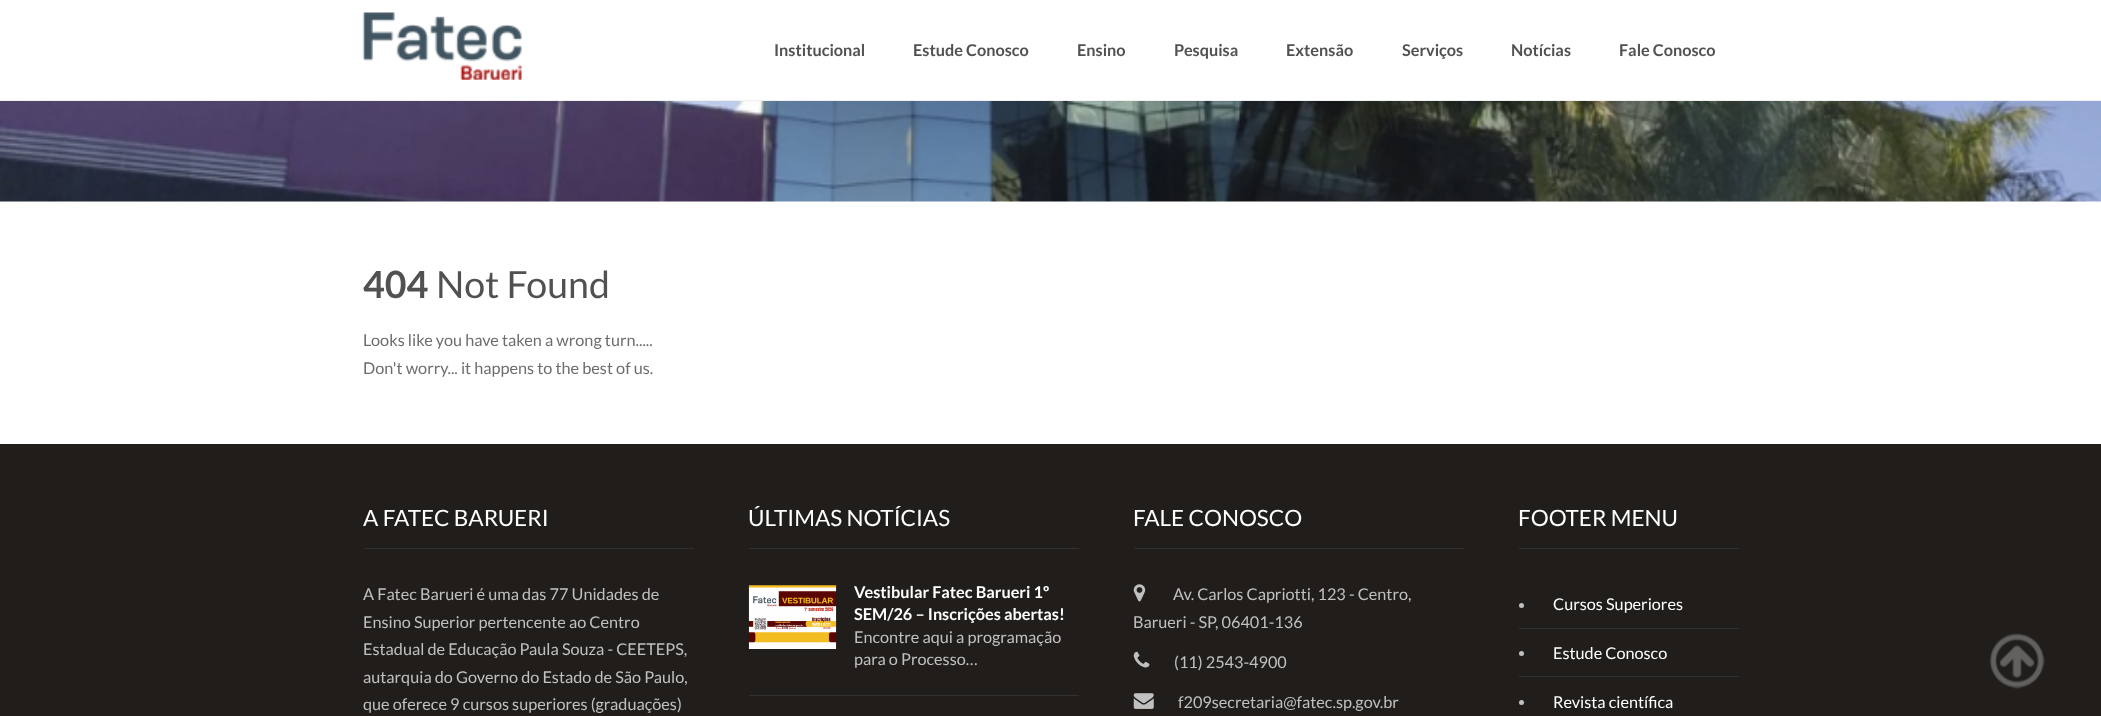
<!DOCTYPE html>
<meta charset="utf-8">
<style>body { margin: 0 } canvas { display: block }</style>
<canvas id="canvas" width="2101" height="716"></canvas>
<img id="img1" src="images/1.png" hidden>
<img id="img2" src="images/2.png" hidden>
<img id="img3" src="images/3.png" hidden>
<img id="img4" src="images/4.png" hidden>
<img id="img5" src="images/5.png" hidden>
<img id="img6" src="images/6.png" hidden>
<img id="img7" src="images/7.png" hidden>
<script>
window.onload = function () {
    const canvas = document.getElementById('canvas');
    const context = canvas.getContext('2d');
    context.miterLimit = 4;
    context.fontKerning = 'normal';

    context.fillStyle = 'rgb(255, 255, 255)';
    context.fillRect(0, 0, 2101, 716);
    context.fillStyle = 'rgb(241, 241, 241)';
    context.fillRect(0, 100, 2101, 1);
    context.drawImage(document.getElementById('img1'), 362, 12, 160, 68);
    context.drawImage(document.getElementById('img2'), 0, 101, 2101, 101);
    context.fillStyle = 'rgb(32, 29, 27)';
    context.fillRect(0, 444, 2101, 272);
    context.fillStyle = 'rgb(48, 48, 48)';
    context.fillRect(364, 548, 330, 1);
    context.fillRect(749, 548, 330, 1);
    context.fillRect(749, 695, 330, 1);
    context.drawImage(document.getElementById('img3'), 748, 585, 89, 64);
    context.fillRect(1134, 548, 330, 1);
    context.drawImage(document.getElementById('img4'), 1133, 584, 13, 18);
    context.drawImage(document.getElementById('img5'), 1133, 651, 17, 17);
    context.drawImage(document.getElementById('img6'), 1133, 693, 21, 16);
    context.fillRect(1519, 548, 220, 1);
    context.fillRect(1519, 628, 220, 1);
    context.fillStyle = 'rgb(193, 192, 192)';
    context.beginPath();
    context.arc(1521.5, 605.5, 2.5, 0, 2 * Math.PI);
    context.fill();
    context.fillStyle = 'rgb(48, 48, 48)';
    context.fillRect(1519, 676, 220, 1);
    context.fillStyle = 'rgb(193, 192, 192)';
    context.beginPath();
    context.arc(1521.5, 653.5, 2.5, 0, 2 * Math.PI);
    context.fill();
    context.beginPath();
    context.arc(1521.5, 702.5, 2.5, 0, 2 * Math.PI);
    context.fill();
    context.drawImage(document.getElementById('img7'), 1990, 633, 55, 56);
    context.font = 'bold 16.25px Lato';
    context.fillStyle = 'rgb(81, 81, 81)';
    context.fillText('Institucional', 774, 56);
    context.fillText('Estude Conosco', 913, 56);
    context.fillText('Ensino', 1077, 56);
    context.fillText('Pesquisa', 1174, 56);
    context.fillText('Extensão', 1286, 56);
    context.fillText('Serviços', 1402, 56);
    context.fillText('Notícias', 1511, 56);
    context.fillText('Fale Conosco', 1619, 56);
    context.font = 'bold 37.5px Lato';
    context.fillText('404', 363, 298);
    context.font = '37.5px Lato';
    context.fillText('Not Found', 436, 298);
    context.font = '16.25px Lato';
    context.fillStyle = 'rgb(110, 109, 109)';
    context.fillText('Looks like you have taken a wrong turn.....', 363, 346);
    context.fillText('Don\'t worry... it happens to the best of us.', 363, 374);
    context.font = '22.5px Lato';
    context.fillStyle = 'rgb(255, 255, 255)';
    context.fillText('A FATEC BARUERI', 363, 526);
    context.font = '16.25px Lato';
    context.fillStyle = 'rgb(193, 192, 192)';
    context.fillText('A Fatec Barueri é uma das 77 Unidades de', 363, 600);
    context.fillText('Ensino Superior pertencente ao Centro', 363, 628);
    context.fillText('Estadual de Educação Paula Souza - CEETEPS,', 363, 655);
    context.fillText('autarquia do Governo do Estado de São Paulo,', 363, 683);
    context.fillText('que oferece 9 cursos superiores (graduações)', 363, 710);
    context.font = '22.5px Lato';
    context.fillStyle = 'rgb(255, 255, 255)';
    context.fillText('ÚLTIMAS NOTÍCIAS', 748, 526);
    context.font = 'bold 16.25px Lato';
    context.fillText('Vestibular Fatec Barueri 1º', 854, 598);
    context.fillText('SEM/26 – Inscrições abertas!', 854, 620);
    context.font = '16.25px Lato';
    context.fillStyle = 'rgb(193, 192, 192)';
    context.fillText('Encontre aqui a programação', 854, 643);
    context.fillText('para o Processo…', 854, 665);
    context.font = '22.5px Lato';
    context.fillStyle = 'rgb(255, 255, 255)';
    context.fillText('FALE CONOSCO', 1133, 526);
    context.font = '16.25px Lato';
    context.fillStyle = 'rgb(193, 192, 192)';
    context.fillText('Av. Carlos Capriotti, 123 - Centro,', 1173, 600);
    context.fillText('Barueri - SP, 06401-136', 1133, 628);
    context.fillText('(11) 2543-4900', 1174, 668);
    context.fillText('f209secretaria@fatec.sp.gov.br', 1178, 708);
    context.font = '22.5px Lato';
    context.fillStyle = 'rgb(255, 255, 255)';
    context.fillText('FOOTER MENU', 1518, 526);
    context.font = '16.25px Lato';
    context.fillText('Cursos Superiores', 1553, 610);
    context.fillText('Estude Conosco', 1553, 659);
    context.fillText('Revista científica', 1553, 708);
};
</script>
